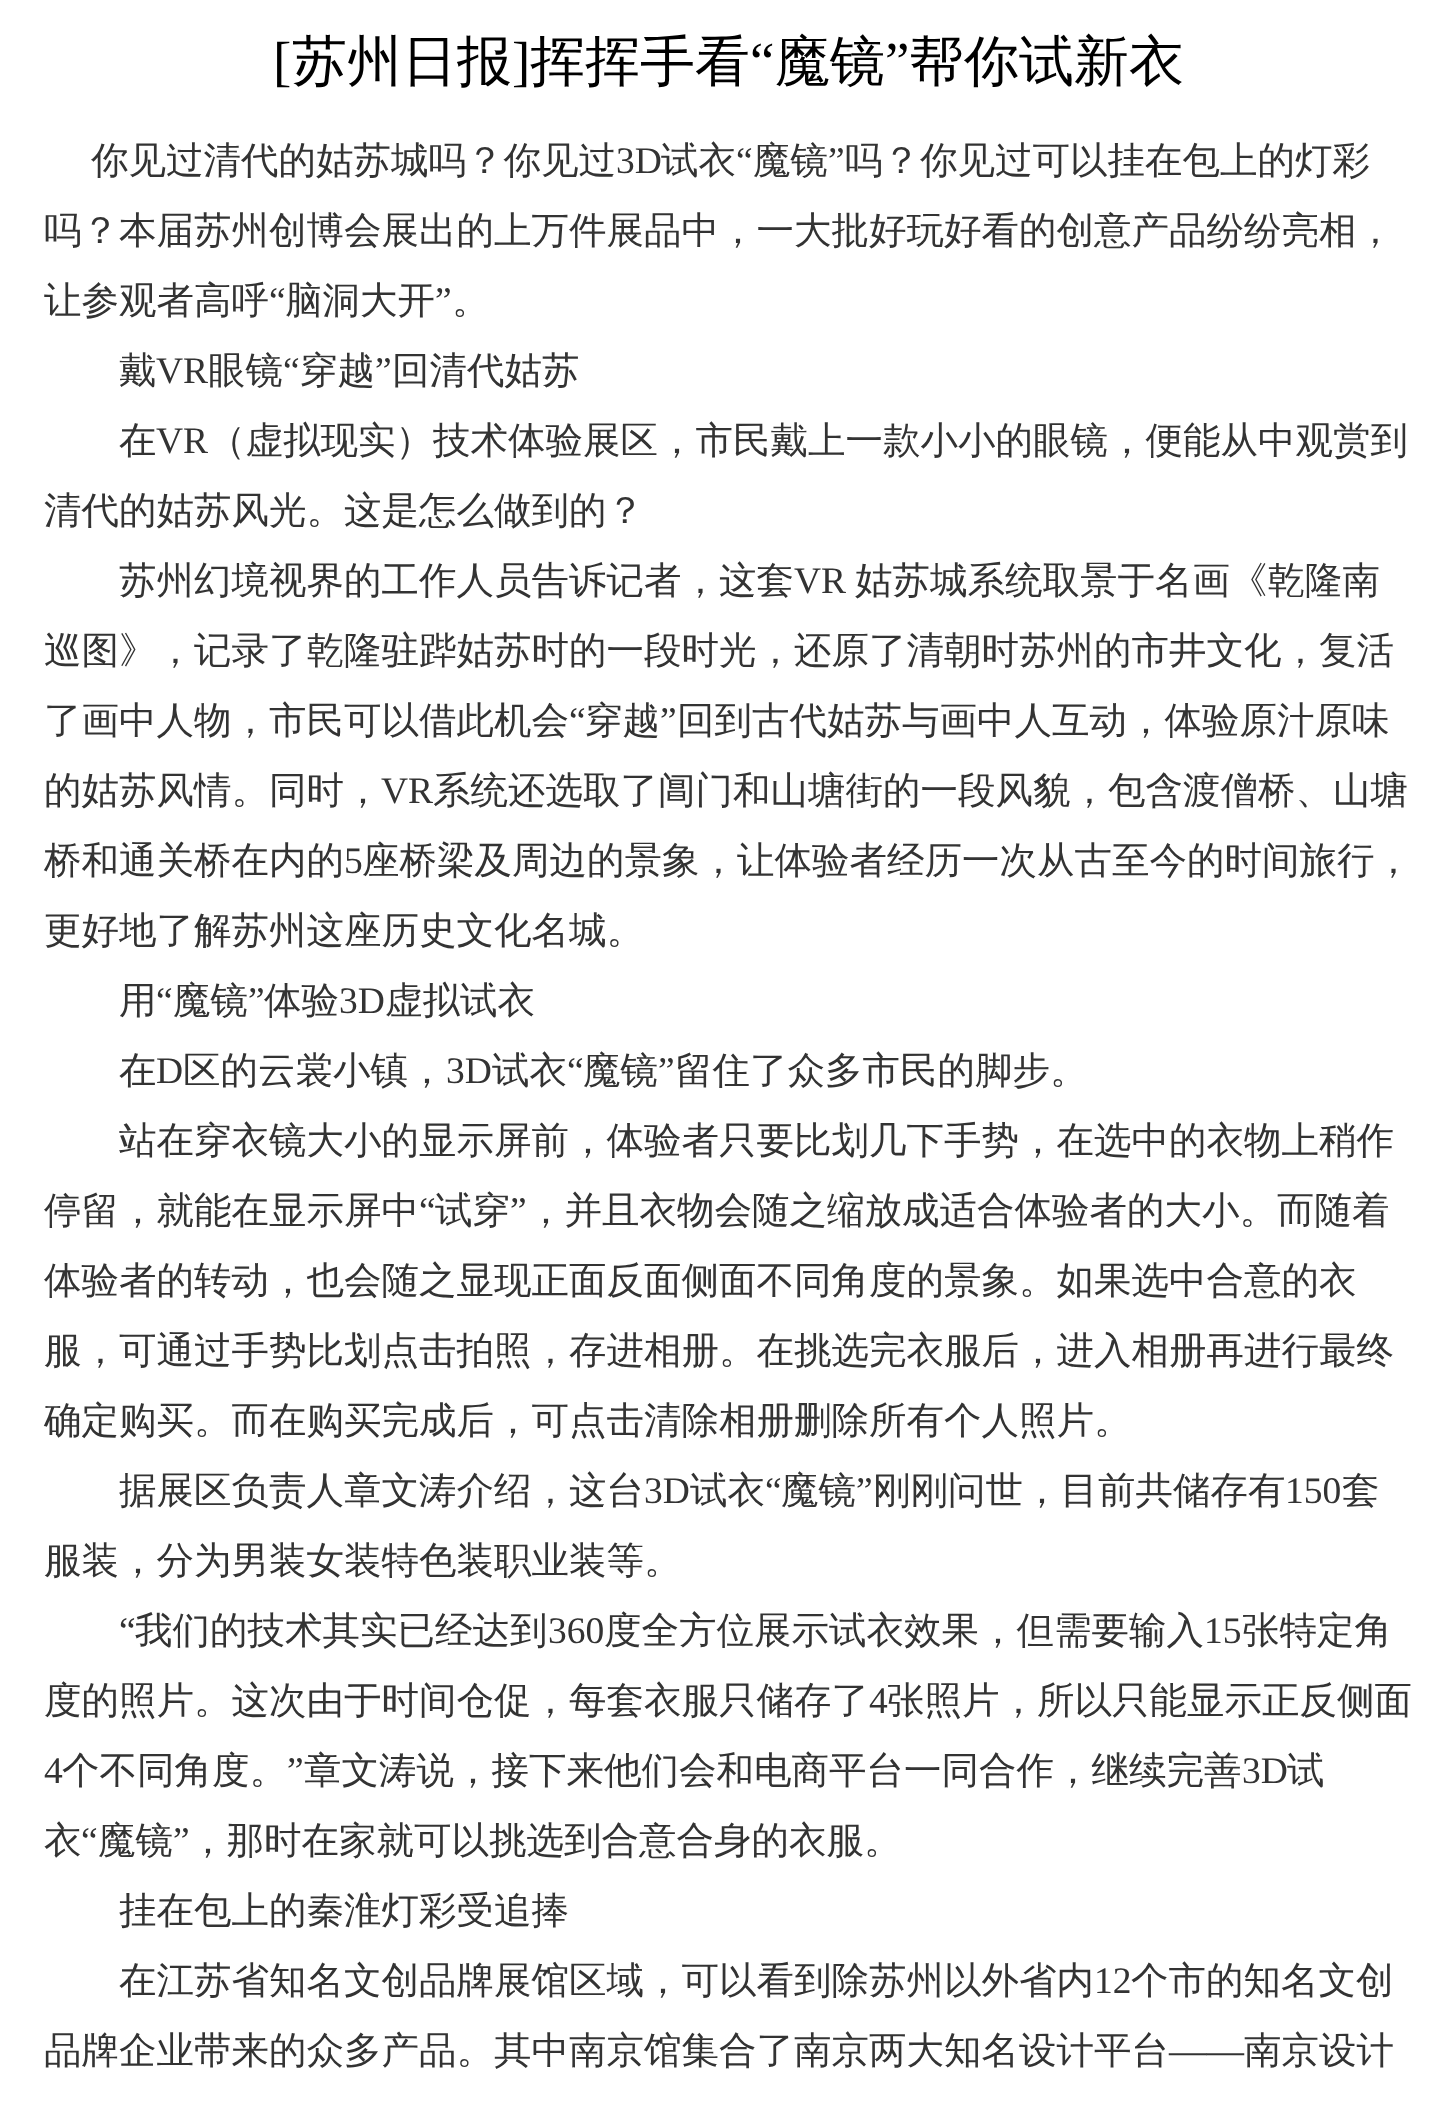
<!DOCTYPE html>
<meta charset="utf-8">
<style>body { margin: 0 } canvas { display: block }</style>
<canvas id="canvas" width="1456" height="2102"></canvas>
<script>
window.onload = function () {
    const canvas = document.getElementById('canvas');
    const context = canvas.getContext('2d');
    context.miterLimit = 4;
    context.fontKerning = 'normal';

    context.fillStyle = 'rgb(255, 255, 255)';
    context.fillRect(0, 0, 1456, 2102);
    context.font = '55px Liberation Serif';
    context.fillStyle = 'rgb(0, 0, 0)';
    context.fillText('[', 273, 80);
    context.font = '500 55px WenQuanYi Zen Hei';
    context.fillText('苏州日报', 292, 80);
    context.font = '55px Liberation Serif';
    context.fillText(']', 512, 80);
    context.font = '500 55px WenQuanYi Zen Hei';
    context.fillText('挥挥手看', 530, 80);
    context.font = '55px Liberation Serif';
    context.fillText('“', 750, 80);
    context.font = '500 55px WenQuanYi Zen Hei';
    context.fillText('魔镜', 775, 80);
    context.font = '55px Liberation Serif';
    context.fillText('”', 885, 80);
    context.font = '500 55px WenQuanYi Zen Hei';
    context.fillText('帮你试新衣', 909, 80);
    context.font = '500 37.5px WenQuanYi Zen Hei';
    context.fillStyle = 'rgb(51, 51, 51)';
    context.fillText('你见过清代的姑苏城吗？你见过', 91, 173);
    context.font = '37.5px Liberation Serif';
    context.fillText('3D', 616, 173);
    context.font = '500 37.5px WenQuanYi Zen Hei';
    context.fillText('试衣', 661, 173);
    context.font = '37.5px Liberation Serif';
    context.fillText('“', 736, 173);
    context.font = '500 37.5px WenQuanYi Zen Hei';
    context.fillText('魔镜', 753, 173);
    context.font = '37.5px Liberation Serif';
    context.fillText('”', 828, 173);
    context.font = '500 37.5px WenQuanYi Zen Hei';
    context.fillText('吗？你见过可以挂在包上的灯彩', 845, 173);
    context.fillText('吗？本届苏州创博会展出的上万件展品中，一大批好玩好看的创意产品纷纷亮相，', 44, 243);
    context.fillText('让参观者高呼', 44, 313);
    context.font = '37.5px Liberation Serif';
    context.fillText('“', 269, 313);
    context.font = '500 37.5px WenQuanYi Zen Hei';
    context.fillText('脑洞大开', 285, 313);
    context.font = '37.5px Liberation Serif';
    context.fillText('”', 435, 313);
    context.font = '500 37.5px WenQuanYi Zen Hei';
    context.fillText('。', 452, 313);
    context.fillText('戴', 119, 383);
    context.font = '37.5px Liberation Serif';
    context.fillText('VR', 156, 383);
    context.font = '500 37.5px WenQuanYi Zen Hei';
    context.fillText('眼镜', 208, 383);
    context.font = '37.5px Liberation Serif';
    context.fillText('“', 283, 383);
    context.font = '500 37.5px WenQuanYi Zen Hei';
    context.fillText('穿越', 300, 383);
    context.font = '37.5px Liberation Serif';
    context.fillText('”', 375, 383);
    context.font = '500 37.5px WenQuanYi Zen Hei';
    context.fillText('回清代姑苏', 392, 383);
    context.fillText('在', 119, 453);
    context.font = '37.5px Liberation Serif';
    context.fillText('VR', 156, 453);
    context.font = '500 37.5px WenQuanYi Zen Hei';
    context.fillText('（虚拟现实）技术体验展区，市民戴上一款小小的眼镜，便能从中观赏到', 208, 453);
    context.fillText('清代的姑苏风光。这是怎么做到的？', 44, 523);
    context.fillText('苏州幻境视界的工作人员告诉记者，这套', 119, 593);
    context.font = '37.5px Liberation Serif';
    context.fillText('VR', 794, 593);
    context.font = '500 37.5px WenQuanYi Zen Hei';
    context.fillText('姑苏城系统取景于名画《乾隆南', 855, 593);
    context.fillText('巡图》，记录了乾隆驻跸姑苏时的一段时光，还原了清朝时苏州的市井文化，复活', 44, 663);
    context.fillText('了画中人物，市民可以借此机会', 44, 733);
    context.font = '37.5px Liberation Serif';
    context.fillText('“', 569, 733);
    context.font = '500 37.5px WenQuanYi Zen Hei';
    context.fillText('穿越', 585, 733);
    context.font = '37.5px Liberation Serif';
    context.fillText('”', 660, 733);
    context.font = '500 37.5px WenQuanYi Zen Hei';
    context.fillText('回到古代姑苏与画中人互动，体验原汁原味', 677, 733);
    context.fillText('的姑苏风情。同时，', 44, 803);
    context.font = '37.5px Liberation Serif';
    context.fillText('VR', 381, 803);
    context.font = '500 37.5px WenQuanYi Zen Hei';
    context.fillText('系统还选取了阊门和山塘街的一段风貌，包含渡僧桥、山塘', 433, 803);
    context.fillText('桥和通关桥在内的', 44, 873);
    context.font = '37.5px Liberation Serif';
    context.fillText('5', 344, 873);
    context.font = '500 37.5px WenQuanYi Zen Hei';
    context.fillText('座桥梁及周边的景象，让体验者经历一次从古至今的时间旅行，', 362, 873);
    context.fillText('更好地了解苏州这座历史文化名城。', 44, 943);
    context.fillText('用', 119, 1013);
    context.font = '37.5px Liberation Serif';
    context.fillText('“', 156, 1013);
    context.font = '500 37.5px WenQuanYi Zen Hei';
    context.fillText('魔镜', 173, 1013);
    context.font = '37.5px Liberation Serif';
    context.fillText('”', 248, 1013);
    context.font = '500 37.5px WenQuanYi Zen Hei';
    context.fillText('体验', 264, 1013);
    context.font = '37.5px Liberation Serif';
    context.fillText('3D', 339, 1013);
    context.font = '500 37.5px WenQuanYi Zen Hei';
    context.fillText('虚拟试衣', 385, 1013);
    context.fillText('在', 119, 1083);
    context.font = '37.5px Liberation Serif';
    context.fillText('D', 156, 1083);
    context.font = '500 37.5px WenQuanYi Zen Hei';
    context.fillText('区的云裳小镇，', 183, 1083);
    context.font = '37.5px Liberation Serif';
    context.fillText('3D', 446, 1083);
    context.font = '500 37.5px WenQuanYi Zen Hei';
    context.fillText('试衣', 492, 1083);
    context.font = '37.5px Liberation Serif';
    context.fillText('“', 567, 1083);
    context.font = '500 37.5px WenQuanYi Zen Hei';
    context.fillText('魔镜', 583, 1083);
    context.font = '37.5px Liberation Serif';
    context.fillText('”', 658, 1083);
    context.font = '500 37.5px WenQuanYi Zen Hei';
    context.fillText('留住了众多市民的脚步。', 675, 1083);
    context.fillText('站在穿衣镜大小的显示屏前，体验者只要比划几下手势，在选中的衣物上稍作', 119, 1153);
    context.fillText('停留，就能在显示屏中', 44, 1223);
    context.font = '37.5px Liberation Serif';
    context.fillText('“', 419, 1223);
    context.font = '500 37.5px WenQuanYi Zen Hei';
    context.fillText('试穿', 435, 1223);
    context.font = '37.5px Liberation Serif';
    context.fillText('”', 510, 1223);
    context.font = '500 37.5px WenQuanYi Zen Hei';
    context.fillText('，并且衣物会随之缩放成适合体验者的大小。而随着', 527, 1223);
    context.fillText('体验者的转动，也会随之显现正面反面侧面不同角度的景象。如果选中合意的衣', 44, 1293);
    context.fillText('服，可通过手势比划点击拍照，存进相册。在挑选完衣服后，进入相册再进行最终', 44, 1363);
    context.fillText('确定购买。而在购买完成后，可点击清除相册删除所有个人照片。', 44, 1433);
    context.fillText('据展区负责人章文涛介绍，这台', 119, 1503);
    context.font = '37.5px Liberation Serif';
    context.fillText('3D', 644, 1503);
    context.font = '500 37.5px WenQuanYi Zen Hei';
    context.fillText('试衣', 690, 1503);
    context.font = '37.5px Liberation Serif';
    context.fillText('“', 765, 1503);
    context.font = '500 37.5px WenQuanYi Zen Hei';
    context.fillText('魔镜', 781, 1503);
    context.font = '37.5px Liberation Serif';
    context.fillText('”', 856, 1503);
    context.font = '500 37.5px WenQuanYi Zen Hei';
    context.fillText('刚刚问世，目前共储存有', 873, 1503);
    context.font = '37.5px Liberation Serif';
    context.fillText('150', 1285, 1503);
    context.font = '500 37.5px WenQuanYi Zen Hei';
    context.fillText('套', 1342, 1503);
    context.fillText('服装，分为男装女装特色装职业装等。', 44, 1573);
    context.font = '37.5px Liberation Serif';
    context.fillText('“', 119, 1643);
    context.font = '500 37.5px WenQuanYi Zen Hei';
    context.fillText('我们的技术其实已经达到', 135, 1643);
    context.font = '37.5px Liberation Serif';
    context.fillText('360', 548, 1643);
    context.font = '500 37.5px WenQuanYi Zen Hei';
    context.fillText('度全方位展示试衣效果，但需要输入', 604, 1643);
    context.font = '37.5px Liberation Serif';
    context.fillText('15', 1204, 1643);
    context.font = '500 37.5px WenQuanYi Zen Hei';
    context.fillText('张特定角', 1242, 1643);
    context.fillText('度的照片。这次由于时间仓促，每套衣服只储存了', 44, 1713);
    context.font = '37.5px Liberation Serif';
    context.fillText('4', 869, 1713);
    context.font = '500 37.5px WenQuanYi Zen Hei';
    context.fillText('张照片，所以只能显示正反侧面', 887, 1713);
    context.font = '37.5px Liberation Serif';
    context.fillText('4', 44, 1783);
    context.font = '500 37.5px WenQuanYi Zen Hei';
    context.fillText('个不同角度。', 62, 1783);
    context.font = '37.5px Liberation Serif';
    context.fillText('”', 287, 1783);
    context.font = '500 37.5px WenQuanYi Zen Hei';
    context.fillText('章文涛说，接下来他们会和电商平台一同合作，继续完善', 304, 1783);
    context.font = '37.5px Liberation Serif';
    context.fillText('3D', 1242, 1783);
    context.font = '500 37.5px WenQuanYi Zen Hei';
    context.fillText('试', 1287, 1783);
    context.fillText('衣', 44, 1853);
    context.font = '37.5px Liberation Serif';
    context.fillText('“', 81, 1853);
    context.font = '500 37.5px WenQuanYi Zen Hei';
    context.fillText('魔镜', 98, 1853);
    context.font = '37.5px Liberation Serif';
    context.fillText('”', 173, 1853);
    context.font = '500 37.5px WenQuanYi Zen Hei';
    context.fillText('，那时在家就可以挑选到合意合身的衣服。', 189, 1853);
    context.fillText('挂在包上的秦淮灯彩受追捧', 119, 1923);
    context.fillText('在江苏省知名文创品牌展馆区域，可以看到除苏州以外省内', 119, 1993);
    context.font = '37.5px Liberation Serif';
    context.fillText('12', 1094, 1993);
    context.font = '500 37.5px WenQuanYi Zen Hei';
    context.fillText('个市的知名文创', 1131, 1993);
    context.fillText('品牌企业带来的众多产品。其中南京馆集合了南京两大知名设计平台', 44, 2063);
    context.font = '37.5px Liberation Serif';
    context.fillText('——', 1169, 2063);
    context.font = '500 37.5px WenQuanYi Zen Hei';
    context.fillText('南京设计', 1244, 2063);
};
</script>
